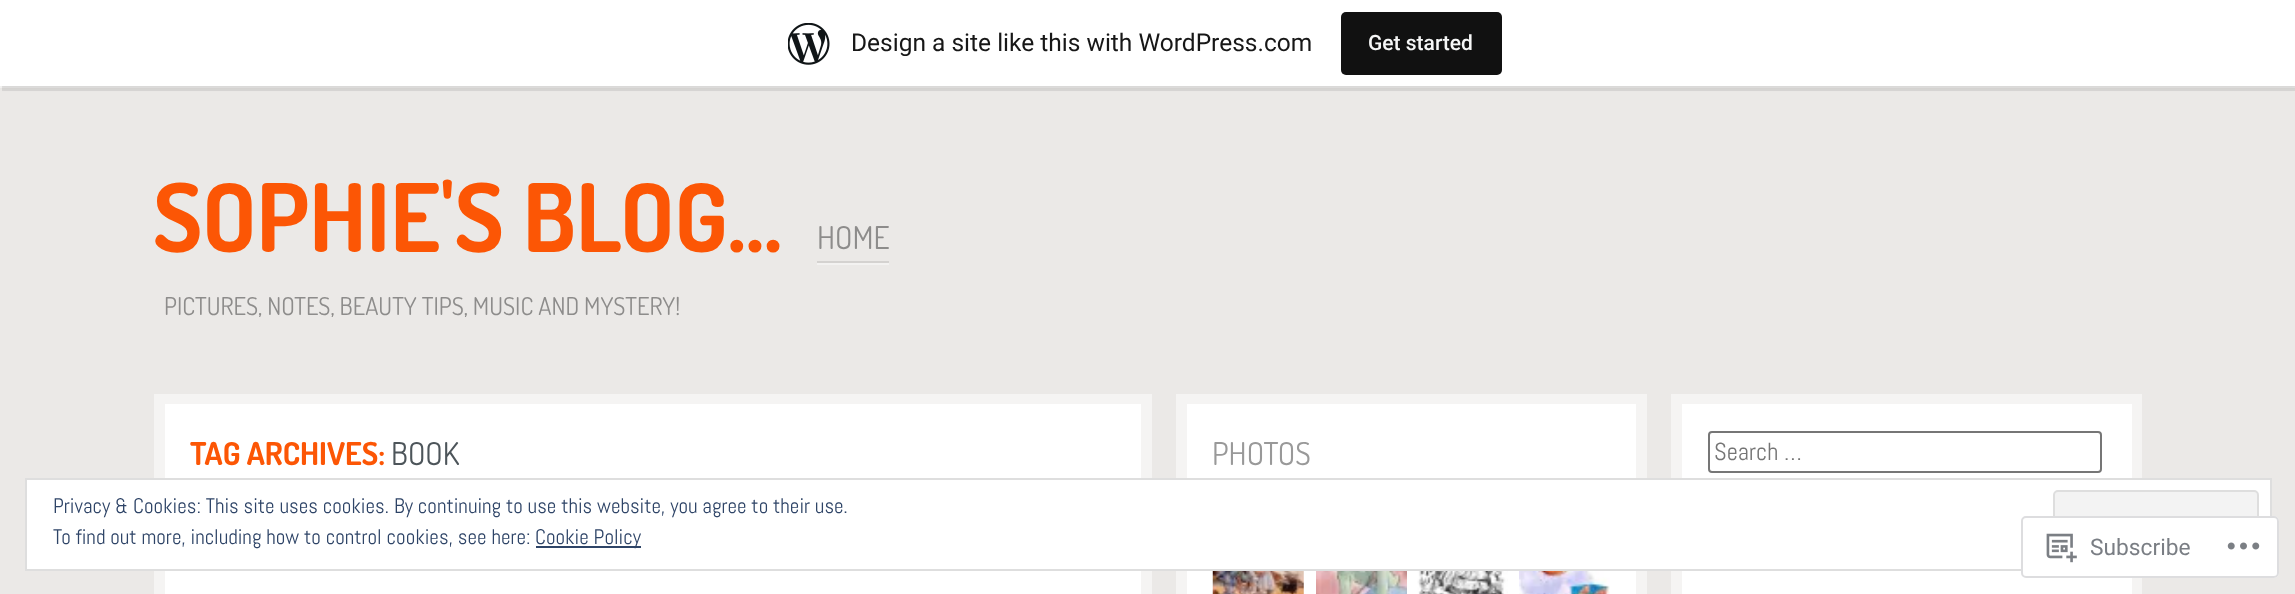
<!DOCTYPE html>
<meta charset="utf-8">
<style>body { margin: 0 } canvas { display: block }</style>
<canvas id="canvas" width="2295" height="594"></canvas>
<img id="img1" src="images/1.png" hidden>
<img id="img2" src="images/2.png" hidden>
<img id="img3" src="images/3.png" hidden>
<img id="img4" src="images/4.png" hidden>
<img id="img5" src="images/5.png" hidden>
<img id="img6" src="images/6.png" hidden>
<img id="img7" src="images/7.png" hidden>
<script>
window.onload = function () {
    const canvas = document.getElementById('canvas');
    const context = canvas.getContext('2d');
    context.miterLimit = 4;
    context.fontKerning = 'normal';

    context.fillStyle = 'rgb(235, 233, 231)';
    context.fillRect(0, 0, 2295, 594);
    context.fillStyle = 'rgb(247, 246, 245)';
    context.fillRect(0, 86, 2295, 2);
    context.fillStyle = 'rgba(0, 0, 0, 0.05)';
    context.filter = 'blur(2px)';
    context.beginPath();
    context.rect(0, 2, 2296, 86);
    context.fill();
    context.filter = 'none';
    context.fillStyle = 'rgba(0, 0, 0, 0.08)';
    context.beginPath();
    context.moveTo(2, 86);
    context.lineTo(2, 91);
    context.lineTo(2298, 91);
    context.lineTo(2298, 5);
    context.lineTo(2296, 5);
    context.lineTo(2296, 86);
    context.closePath();
    context.fill();
    context.fillStyle = 'rgb(255, 255, 255)';
    context.fillRect(0, 0, 2295, 86);
    context.drawImage(document.getElementById('img1'), 788, 23, 42, 42);
    context.fillStyle = 'rgb(17, 17, 17)';
    context.beginPath();
    context.roundRect(1341, 12, 161, 63, 5);
    context.fill();
    context.fillStyle = 'rgb(243, 242, 241)';
    context.fillRect(817, 263, 72, 2);
    context.fillStyle = 'rgb(212, 210, 208)';
    context.fillRect(817, 261, 72, 2);
    context.fillStyle = 'rgb(255, 255, 255)';
    context.fillRect(165, 404, 976, 190);
    context.strokeStyle = 'rgba(255, 255, 255, 0.5)';
    context.lineWidth = 11;
    context.strokeRect(159.5, 399.5, 987, 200);
    context.fillRect(1187, 404, 449, 190);
    context.strokeRect(1181.5, 399.5, 460, 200);
    context.drawImage(document.getElementById('img2'), 1212, 571, 92, 23);
    context.drawImage(document.getElementById('img3'), 1316, 571, 91, 23);
    context.drawImage(document.getElementById('img4'), 1417, 571, 91, 23);
    context.drawImage(document.getElementById('img5'), 1519, 571, 91, 23);
    context.fillRect(1682, 404, 450, 190);
    context.strokeRect(1676.5, 399.5, 460, 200);
    context.beginPath();
    context.roundRect(1709, 432, 392, 40, 3);
    context.strokeStyle = 'rgb(118, 118, 118)';
    context.lineWidth = 2;
    context.stroke();
    context.beginPath();
    context.rect(26, 479, 2245, 91);
    context.fill();
    context.strokeStyle = 'rgb(222, 222, 222)';
    context.stroke();
    context.fillStyle = 'rgb(243, 243, 243)';
    context.beginPath();
    context.roundRect(2054, 491, 204, 66, 4);
    context.fill();
    context.stroke();
    context.fillStyle = 'rgb(46, 68, 103)';
    context.fillRect(536, 546, 105, 2);
    context.fillStyle = 'rgba(255, 255, 255, 0.98)';
    context.beginPath();
    context.roundRect(2021, 516, 258, 62, 5);
    context.fill();
    context.beginPath();
    context.roundRect(2022, 517, 256, 60, 4);
    context.strokeStyle = 'rgba(220, 220, 222, 0.98)';
    context.stroke();
    context.drawImage(document.getElementById('img6'), 2046, 533, 31, 30);
    context.drawImage(document.getElementById('img7'), 2227, 542, 33, 8);
    context.font = '24.5px Roboto';
    context.fillStyle = 'rgb(23, 23, 23)';
    context.fillText('Design a site like this with WordPress.com', 851, 51);
    context.font = '500 21px Roboto';
    context.fillStyle = 'rgb(246, 247, 247)';
    context.fillText('Get started', 1368, 50);
    context.font = 'bold 94.5px Dosis';
    context.fillStyle = 'rgb(252, 86, 5)';
    context.fillText('SOPHIE\'S BLOG…', 153, 252);
    context.font = '24.5px Dosis';
    context.fillStyle = 'rgb(141, 140, 139)';
    context.fillText('PICTURES, NOTES, BEAUTY TIPS, MUSIC AND MYSTERY!', 164, 315);
    context.font = '31.5px Dosis';
    context.fillText('HOME', 817, 249);
    context.font = 'bold 31.5px Dosis';
    context.fillStyle = 'rgb(252, 86, 5)';
    context.fillText('TAG ARCHIVES:', 190, 465);
    context.font = '31.5px Dosis';
    context.fillStyle = 'rgb(77, 85, 90)';
    context.fillText('BOOK', 391, 465);
    context.fillStyle = 'rgb(153, 153, 153)';
    context.fillText('PHOTOS', 1212, 465);
    context.font = '24.5px Abel';
    context.fillStyle = 'rgb(117, 117, 117)';
    context.fillText('Search …', 1714, 460);
    context.font = '21px Abel';
    context.fillStyle = 'rgb(46, 68, 103)';
    context.fillText('Privacy & Cookies: This site uses cookies. By continuing to use this website, you agree to their use.', 53, 513);
    context.fillText('To find out more, including how to control cookies, see here:', 53, 544);
    context.fillText('Cookie Policy', 535, 544);
    context.font = '22.75px Roboto';
    context.fillStyle = 'rgb(122, 126, 132)';
    context.fillText('Subscribe', 2090, 555);
};
</script>
